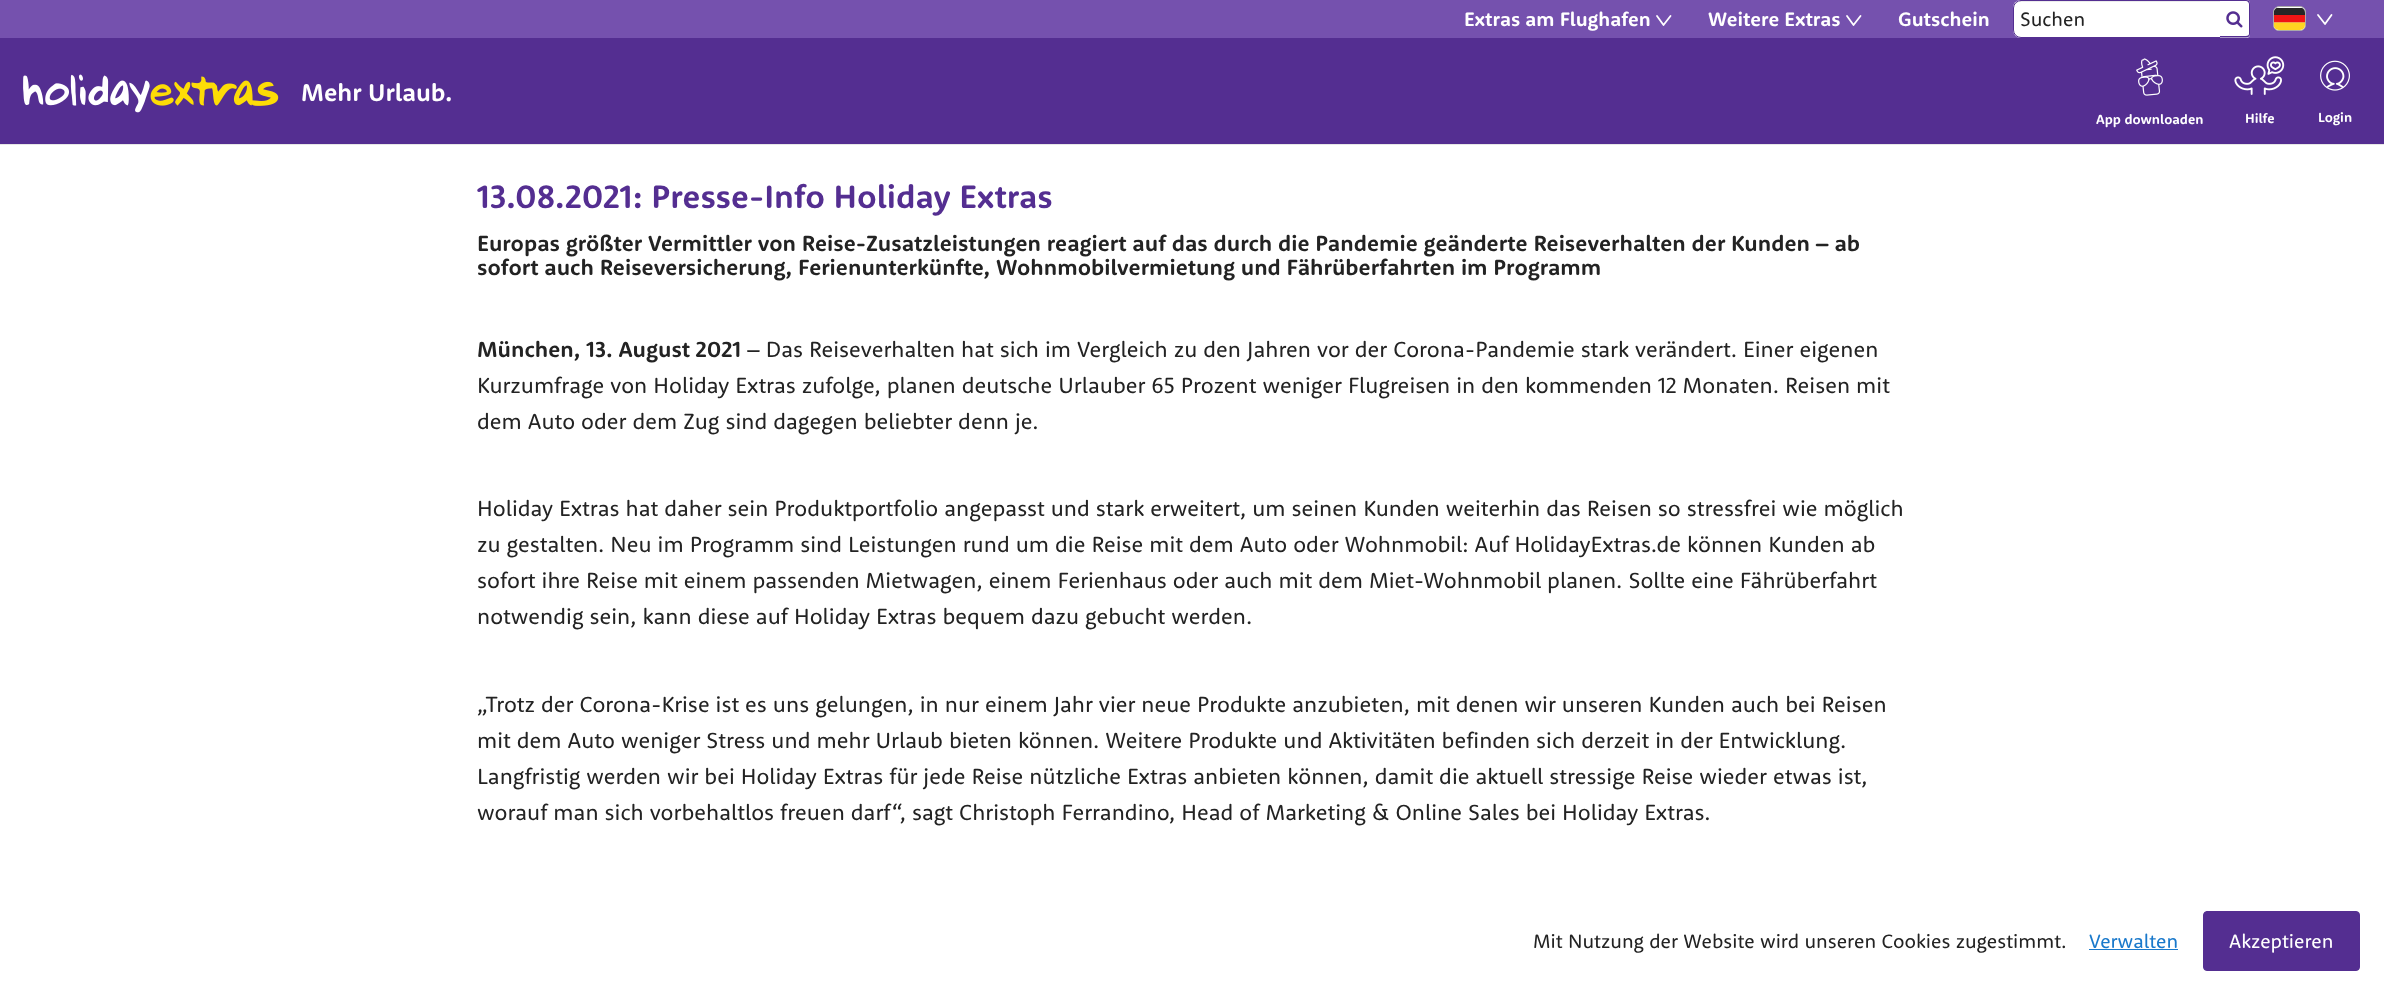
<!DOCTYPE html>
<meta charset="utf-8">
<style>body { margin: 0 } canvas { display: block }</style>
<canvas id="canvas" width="2384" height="986"></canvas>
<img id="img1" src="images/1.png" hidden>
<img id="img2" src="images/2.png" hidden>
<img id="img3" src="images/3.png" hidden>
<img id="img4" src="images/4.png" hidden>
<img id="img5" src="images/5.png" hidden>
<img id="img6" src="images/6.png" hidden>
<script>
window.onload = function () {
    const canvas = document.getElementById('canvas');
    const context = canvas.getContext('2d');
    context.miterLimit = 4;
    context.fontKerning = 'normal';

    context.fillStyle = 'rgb(255, 255, 255)';
    context.fillRect(0, 0, 2384, 986);
    context.fillStyle = 'rgb(84, 46, 145)';
    context.fillRect(0, 38, 2384, 106);
    context.fillStyle = 'rgb(117, 81, 174)';
    context.fillRect(0, 0, 2384, 38);
    context.beginPath();
    context.moveTo(1657, 16);
    context.lineTo(1663.5, 25);
    context.lineTo(1670.5, 16);
    context.strokeStyle = 'rgb(255, 255, 255)';
    context.lineWidth = 1.8;
    context.lineCap = 'round';
    context.lineJoin = 'round';
    context.stroke();
    context.beginPath();
    context.moveTo(1847, 16);
    context.lineTo(1853.5, 25);
    context.lineTo(1860.5, 16);
    context.stroke();
    context.fillStyle = 'rgb(255, 255, 255)';
    context.beginPath();
    context.roundRect(2013, 0, 208, 38, [8, 0, 0, 8]);
    context.fill();
    context.fillStyle = 'rgb(236, 236, 236)';
    context.beginPath();
    context.moveTo(2020, 2);
    context.lineTo(2220, 2);
    context.lineTo(2220, 1);
    context.lineTo(2020, 1);
    context.bezierCurveTo(2017, 1, 2014, 4, 2014, 7);
    context.lineTo(2014, 9);
    context.bezierCurveTo(2014, 5, 2017, 2, 2020, 2);
    context.closePath();
    context.fill();
    context.beginPath();
    context.roundRect(2013.5, 0.5, 207, 37, [7.5, 0, 0, 7.5]);
    context.strokeStyle = 'rgb(84, 46, 145)';
    context.lineWidth = 1;
    context.lineJoin = 'miter';
    context.stroke();
    context.fillStyle = 'rgb(255, 255, 255)';
    context.beginPath();
    context.roundRect(2220, 0, 30, 38, [0, 4, 4, 0]);
    context.fill();
    context.fillStyle = 'rgb(84, 46, 145)';
    context.beginPath();
    context.moveTo(2220, 0);
    context.lineTo(2246, 0);
    context.bezierCurveTo(2248.5, 0, 2250, 1.5, 2250, 4);
    context.lineTo(2250, 34);
    context.bezierCurveTo(2250, 36, 2248.5, 37.5, 2246, 37.5);
    context.lineTo(2220, 37.5);
    context.closePath();
    context.moveTo(2220, 1);
    context.lineTo(2246, 1);
    context.bezierCurveTo(2247.5, 1, 2249, 2.5, 2249, 4);
    context.lineTo(2249, 34);
    context.bezierCurveTo(2249, 35, 2247.5, 36, 2246, 36);
    context.lineTo(2220, 36);
    context.closePath();
    context.fill('evenodd');
    context.drawImage(document.getElementById('img1'), 2226, 11, 17, 17);
    context.fillStyle = 'rgb(255, 255, 255)';
    context.beginPath();
    context.roundRect(2273.5, 6.5, 32, 24, 5.5);
    context.fill();
    context.strokeStyle = 'rgb(170, 170, 170)';
    context.stroke();
    context.drawImage(document.getElementById('img2'), 2274, 8, 31, 22);
    context.beginPath();
    context.moveTo(2318, 15);
    context.lineTo(2325, 24);
    context.lineTo(2331.5, 15);
    context.strokeStyle = 'rgb(255, 255, 255)';
    context.lineWidth = 1.8;
    context.lineJoin = 'round';
    context.stroke();
    context.drawImage(document.getElementById('img3'), 23, 74, 256, 39);
    context.drawImage(document.getElementById('img4'), 2136, 58, 27, 38);
    context.drawImage(document.getElementById('img5'), 2234, 56, 51, 39);
    context.drawImage(document.getElementById('img6'), 2320, 60, 30, 31);
    context.fillStyle = 'rgb(230, 230, 230)';
    context.fillRect(0, 144, 2384, 1);
    context.fillStyle = 'rgb(26, 121, 203)';
    context.fillRect(2089, 949, 89, 1);
    context.fillStyle = 'rgb(84, 46, 145)';
    context.beginPath();
    context.roundRect(2203.5, 911.5, 156, 59, 3.5);
    context.fill();
    context.strokeStyle = 'rgb(84, 46, 145)';
    context.lineWidth = 1;
    context.lineJoin = 'miter';
    context.stroke();
    context.font = 'bold 20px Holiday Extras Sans';
    context.fillStyle = 'rgb(255, 255, 255)';
    context.fillText('Extras am Flughafen', 1464, 26);
    context.fillText('Weitere Extras', 1708, 26);
    context.fillText('Gutschein', 1898, 26);
    context.font = '20px Holiday Extras Sans';
    context.fillStyle = 'rgb(35, 35, 35)';
    context.fillText('Suchen', 2020, 26);
    context.font = 'bold 25px Holiday Extras Sans';
    context.fillStyle = 'rgb(255, 255, 255)';
    context.fillText('Mehr Urlaub.', 301, 101);
    context.font = 'bold 13.75px Holiday Extras Sans';
    context.fillText('App downloaden', 2096, 124);
    context.fillText('Hilfe', 2245, 123);
    context.fillText('Login', 2318, 122);
    context.font = 'bold 33.3px Holiday Extras Sans';
    context.fillStyle = 'rgb(84, 46, 145)';
    context.fillText('13.08.2021: Presse-Info Holiday Extras', 477, 208);
    context.font = 'bold 22.5px Holiday Extras Sans';
    context.fillStyle = 'rgb(35, 35, 35)';
    context.fillText('Europas größter Vermittler von Reise-Zusatzleistungen reagiert auf das durch die Pandemie geänderte Reiseverhalten der Kunden – ab', 477, 251);
    context.fillText('sofort auch Reiseversicherung, Ferienunterkünfte, Wohnmobilvermietung und Fährüberfahrten im Programm', 477, 275);
    context.fillText('München, 13. August 2021', 477, 357);
    context.font = '22.5px Holiday Extras Sans';
    context.fillText('– Das Reiseverhalten hat sich im Vergleich zu den Jahren vor der Corona-Pandemie stark verändert. Einer eigenen', 747, 357);
    context.fillText('Kurzumfrage von Holiday Extras zufolge, planen deutsche Urlauber 65 Prozent weniger Flugreisen in den kommenden 12 Monaten. Reisen mit', 477, 393);
    context.fillText('dem Auto oder dem Zug sind dagegen beliebter denn je.', 477, 429);
    context.fillText('Holiday Extras hat daher sein Produktportfolio angepasst und stark erweitert, um seinen Kunden weiterhin das Reisen so stressfrei wie möglich', 477, 516);
    context.fillText('zu gestalten. Neu im Programm sind Leistungen rund um die Reise mit dem Auto oder Wohnmobil: Auf HolidayExtras.de können Kunden ab', 477, 552);
    context.fillText('sofort ihre Reise mit einem passenden Mietwagen, einem Ferienhaus oder auch mit dem Miet-Wohnmobil planen. Sollte eine Fährüberfahrt', 477, 588);
    context.fillText('notwendig sein, kann diese auf Holiday Extras bequem dazu gebucht werden.', 477, 624);
    context.fillText('„Trotz der Corona-Krise ist es uns gelungen, in nur einem Jahr vier neue Produkte anzubieten, mit denen wir unseren Kunden auch bei Reisen', 477, 712);
    context.fillText('mit dem Auto weniger Stress und mehr Urlaub bieten können. Weitere Produkte und Aktivitäten befinden sich derzeit in der Entwicklung.', 477, 748);
    context.fillText('Langfristig werden wir bei Holiday Extras für jede Reise nützliche Extras anbieten können, damit die aktuell stressige Reise wieder etwas ist,', 477, 784);
    context.fillText('worauf man sich vorbehaltlos freuen darf“, sagt Christoph Ferrandino, Head of Marketing & Online Sales bei Holiday Extras.', 477, 820);
    context.font = '20px Holiday Extras Sans';
    context.fillText('Mit Nutzung der Website wird unseren Cookies zugestimmt.', 1533, 948);
    context.fillStyle = 'rgb(26, 121, 203)';
    context.fillText('Verwalten', 2089, 948);
    context.fillStyle = 'rgb(255, 255, 255)';
    context.fillText('Akzeptieren', 2229, 948);
};
</script>
